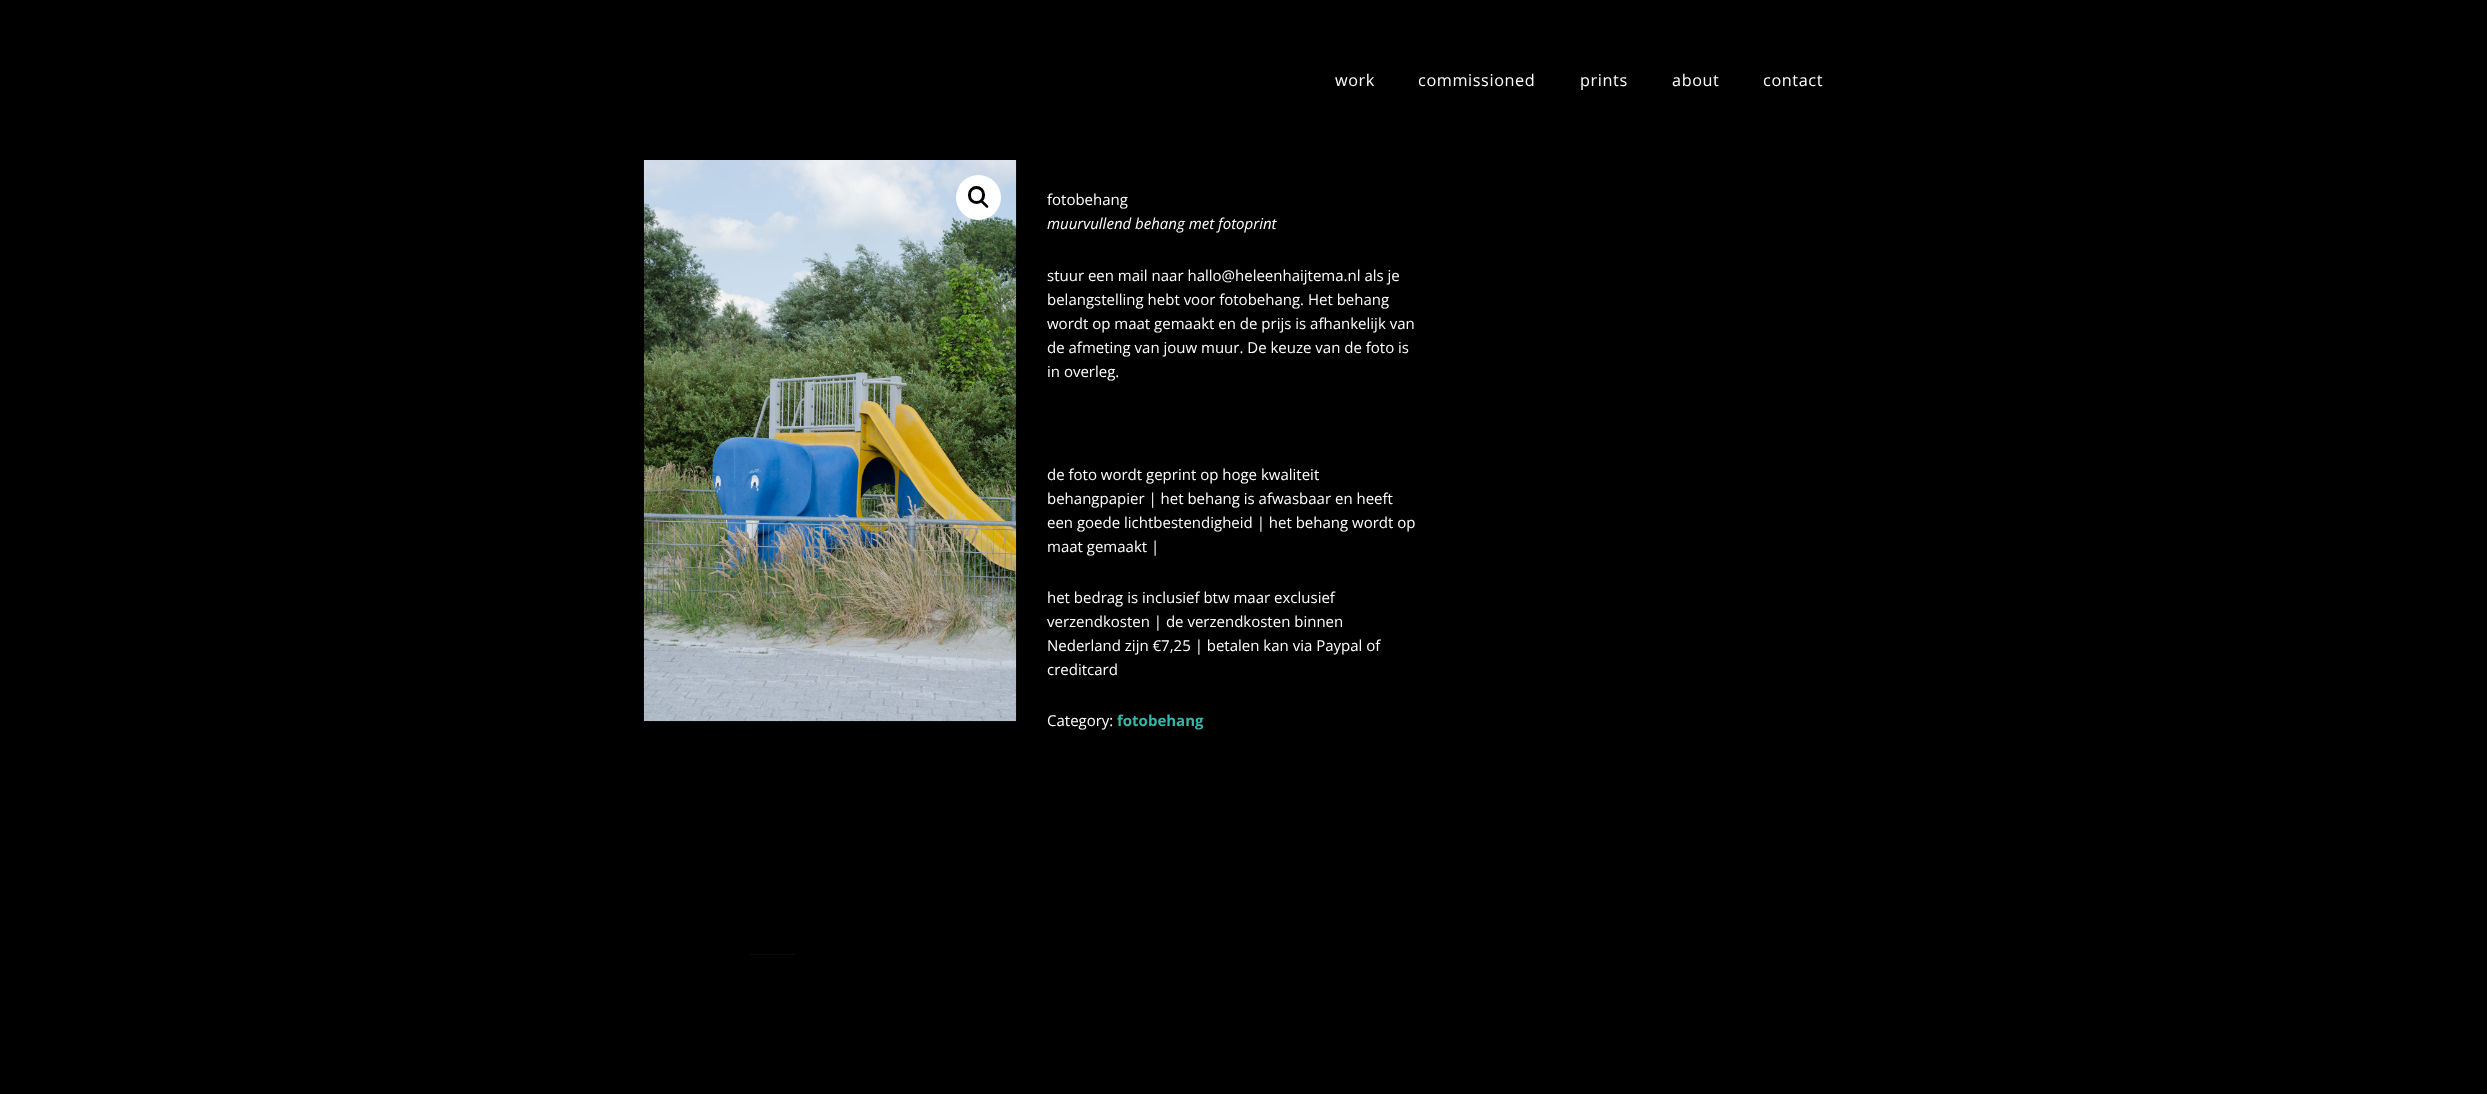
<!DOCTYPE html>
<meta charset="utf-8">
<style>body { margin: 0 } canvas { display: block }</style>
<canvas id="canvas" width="2487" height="1094"></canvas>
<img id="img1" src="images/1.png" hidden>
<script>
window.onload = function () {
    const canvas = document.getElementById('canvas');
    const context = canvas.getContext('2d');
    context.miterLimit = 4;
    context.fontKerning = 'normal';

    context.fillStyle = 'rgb(0, 0, 0)';
    context.fillRect(0, 0, 2487, 1094);
    context.drawImage(document.getElementById('img1'), 643, 160, 374, 562);
    context.fillStyle = 'rgb(255, 255, 255)';
    context.beginPath();
    context.arc(978.5, 197.5, 22.5, 0, 2 * Math.PI);
    context.fill();
    context.beginPath();
    context.roundRect(969.5, 187.5, 14, 15, 7);
    context.strokeStyle = 'rgb(0, 0, 0)';
    context.lineWidth = 3;
    context.stroke();
    context.fillStyle = 'rgb(0, 0, 0)';
    context.beginPath();
    context.moveTo(981, 200.5);
    context.bezierCurveTo(982.5, 199, 984.5, 202.5, 985.5, 203);
    context.bezierCurveTo(986, 204, 989.5, 206, 988, 207.5);
    context.bezierCurveTo(986.5, 209, 984.5, 205.5, 983.5, 205);
    context.bezierCurveTo(983, 204, 979.5, 202, 981, 200.5);
    context.closePath();
    context.fill();
    context.fillStyle = 'rgb(12, 12, 12)';
    context.fillRect(750, 954, 45, 1);
    context.letterSpacing = '0.6px';
    context.font = '16.25px Open Sans';
    context.fillStyle = 'rgb(255, 255, 255)';
    context.fillText('work', 1335, 86);
    context.fillText('commissioned', 1418, 86);
    context.fillText('prints', 1580, 86);
    context.fillText('about', 1672, 86);
    context.fillText('contact', 1763, 86);
    context.letterSpacing = '0px';
    context.font = '15px Open Sans';
    context.fillText('fotobehang', 1047, 205);
    context.font = 'italic 15px Open Sans';
    context.fillText('muurvullend behang met fotoprint', 1047, 229);
    context.font = '15px Open Sans';
    context.fillText('stuur een mail naar hallo@heleenhaijtema.nl als je', 1047, 281);
    context.fillText('belangstelling hebt voor fotobehang. Het behang', 1047, 305);
    context.fillText('wordt op maat gemaakt en de prijs is afhankelijk van', 1047, 329);
    context.fillText('de afmeting van jouw muur. De keuze van de foto is', 1047, 353);
    context.fillText('in overleg.', 1047, 377);
    context.fillText('de foto wordt geprint op hoge kwaliteit', 1047, 480);
    context.fillText('behangpapier | het behang is afwasbaar en heeft', 1047, 504);
    context.fillText('een goede lichtbestendigheid | het behang wordt op', 1047, 528);
    context.fillText('maat gemaakt |', 1047, 552);
    context.fillText('het bedrag is inclusief btw maar exclusief', 1047, 603);
    context.fillText('verzendkosten | de verzendkosten binnen', 1047, 627);
    context.fillText('Nederland zijn €7,25 | betalen kan via Paypal of', 1047, 651);
    context.fillText('creditcard', 1047, 675);
    context.fillText('Category:', 1047, 726);
    context.font = 'bold 15px Open Sans';
    context.fillStyle = 'rgb(56, 181, 168)';
    context.fillText('fotobehang', 1117, 726);
};
</script>
